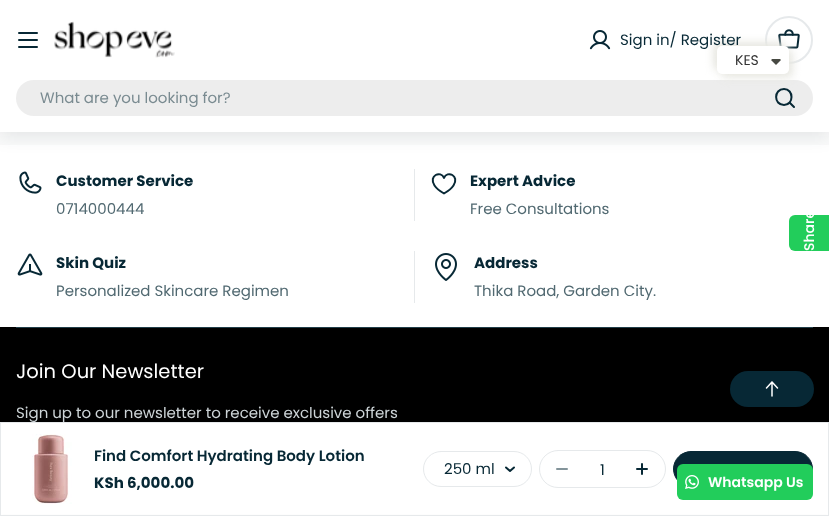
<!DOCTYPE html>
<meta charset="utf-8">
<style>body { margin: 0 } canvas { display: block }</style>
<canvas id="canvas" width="829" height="516"></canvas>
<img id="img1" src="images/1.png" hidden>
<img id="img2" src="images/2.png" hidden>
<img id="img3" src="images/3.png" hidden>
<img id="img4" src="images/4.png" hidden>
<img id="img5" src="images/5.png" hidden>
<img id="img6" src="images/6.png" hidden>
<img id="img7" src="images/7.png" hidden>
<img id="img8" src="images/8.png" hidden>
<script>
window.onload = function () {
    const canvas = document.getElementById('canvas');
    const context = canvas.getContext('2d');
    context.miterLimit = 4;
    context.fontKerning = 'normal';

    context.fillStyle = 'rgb(255, 255, 255)';
    context.fillRect(0, 0, 829, 516);
    context.fillStyle = 'rgb(250, 250, 250)';
    context.fillRect(0, 132, 829, 13);
    context.fillStyle = 'rgba(7, 40, 53, 0.1)';
    context.filter = 'blur(9px)';
    context.beginPath();
    context.rect(0, 4, 829, 132);
    context.fill();
    context.filter = 'none';
    context.fillStyle = 'rgb(255, 255, 255)';
    context.fillRect(0, 0, 829, 132);
    context.fillStyle = 'rgb(7, 40, 53)';
    context.beginPath();
    context.roundRect(18, 39, 20, 2, 1);
    context.fill();
    context.beginPath();
    context.roundRect(18, 32, 20, 2, 1);
    context.fill();
    context.beginPath();
    context.roundRect(18, 46, 20, 2, 1);
    context.fill();
    context.drawImage(document.getElementById('img1'), 54, 21, 121, 37);
    context.drawImage(document.getElementById('img2'), 589, 30, 22, 20);
    context.beginPath();
    context.arc(789, 40, 23, 0, 2 * Math.PI);
    context.strokeStyle = 'rgb(230, 233, 235)';
    context.lineWidth = 2;
    context.stroke();
    context.drawImage(document.getElementById('img3'), 778, 29, 22, 20);
    context.fillStyle = 'rgb(237, 237, 237)';
    context.beginPath();
    context.roundRect(16, 80, 797, 36, 18);
    context.fill();
    context.beginPath();
    context.moveTo(784, 105);
    context.bezierCurveTo(794, 105, 794, 89, 784, 89);
    context.bezierCurveTo(773.5, 89, 773.5, 105, 784, 105);
    context.closePath();
    context.moveTo(789.5, 102.5);
    context.lineTo(794, 107);
    context.strokeStyle = 'rgb(7, 40, 53)';
    context.lineCap = 'round';
    context.lineJoin = 'round';
    context.stroke();
    context.drawImage(document.getElementById('img4'), 19, 171, 23, 23);
    context.fillStyle = 'rgb(230, 233, 235)';
    context.fillRect(414, 169, 1, 52);
    context.beginPath();
    context.moveTo(444, 193.5);
    context.bezierCurveTo(440.5, 191.5, 436.5, 188.5, 434.5, 185.5);
    context.bezierCurveTo(428, 175.5, 441, 170, 444, 178);
    context.bezierCurveTo(447, 170, 460, 175.5, 453.5, 185.5);
    context.bezierCurveTo(451.5, 188.5, 447.5, 191.5, 444, 193.5);
    context.closePath();
    context.stroke();
    context.drawImage(document.getElementById('img5'), 17, 253, 26, 23);
    context.fillRect(414, 251, 1, 52);
    context.drawImage(document.getElementById('img6'), 435, 253, 22, 28);
    context.fillStyle = 'rgb(0, 0, 0)';
    context.fillRect(0, 327, 829, 95);
    context.fillStyle = 'rgb(32, 62, 73)';
    context.fillRect(16, 327, 797, 1);
    context.fillStyle = 'rgb(7, 40, 53)';
    context.beginPath();
    context.roundRect(730, 371, 84, 36, 18);
    context.fill();
    context.fillStyle = 'rgba(0, 0, 0, 0.05)';
    context.filter = 'blur(5px)';
    context.beginPath();
    context.rect(0, 416, 829, 94);
    context.fill();
    context.filter = 'none';
    context.fillStyle = 'rgb(255, 255, 255)';
    context.fillRect(1, 423, 827, 91);
    context.fillStyle = 'rgb(232, 232, 226)';
    context.filter = 'blur(4.5px)';
    context.beginPath();
    context.roundRect(713, 42, 72, 28, 5);
    context.fill();
    context.filter = 'none';
    context.filter = 'blur(4.5px)';
    context.beginPath();
    context.roundRect(721, 50, 72, 28, 5);
    context.fill();
    context.filter = 'none';
    context.fillStyle = 'rgb(34, 205, 91)';
    context.beginPath();
    context.roundRect(789, 215, 40, 36, [6, 0, 0, 6]);
    context.fill();
    context.beginPath();
    context.moveTo(772, 396);
    context.lineTo(772, 382);
    context.moveTo(766.5, 388);
    context.lineTo(772, 382);
    context.lineTo(777.5, 388);
    context.strokeStyle = 'rgb(255, 255, 255)';
    context.lineWidth = 1.5;
    context.stroke();
    context.font = '15px Poppins';
    context.fillStyle = 'rgb(7, 40, 53)';
    context.fillText('Sign in/ Register', 620, 45);
    context.fillStyle = 'rgb(122, 139, 145)';
    context.fillText('What are you looking for?', 40, 103);
    context.font = 'bold 15px Poppins';
    context.fillStyle = 'rgb(7, 40, 53)';
    context.fillText('Customer Service', 56, 186);
    context.font = '15px Poppins';
    context.fillStyle = 'rgb(81, 105, 113)';
    context.fillText('0714000444', 56, 214);
    context.font = 'bold 15px Poppins';
    context.fillStyle = 'rgb(7, 40, 53)';
    context.fillText('Expert Advice', 470, 186);
    context.font = '15px Poppins';
    context.fillStyle = 'rgb(81, 105, 113)';
    context.fillText('Free Consultations', 470, 214);
    context.font = 'bold 15px Poppins';
    context.fillStyle = 'rgb(7, 40, 53)';
    context.fillText('Skin Quiz', 56, 268);
    context.font = '15px Poppins';
    context.fillStyle = 'rgb(81, 105, 113)';
    context.fillText('Personalized Skincare Regimen', 56, 296);
    context.font = 'bold 15px Poppins';
    context.fillStyle = 'rgb(7, 40, 53)';
    context.fillText('Address', 474, 268);
    context.font = '15px Poppins';
    context.fillStyle = 'rgb(81, 105, 113)';
    context.fillText('Thika Road, Garden City.', 474, 296);
    context.font = '19.5px Poppins';
    context.fillStyle = 'rgb(255, 255, 255)';
    context.fillText('Join Our Newsletter', 16, 378);
    context.font = '15px Poppins';
    context.fillStyle = 'rgb(205, 212, 215)';
    context.fillText('Sign up to our newsletter to receive exclusive offers', 16, 418);
    context.strokeStyle = 'rgb(230, 233, 235)';
    context.lineWidth = 1;
    context.lineJoin = 'miter';
    context.strokeRect(0.5, 422.5, 828, 93);
    context.drawImage(document.getElementById('img7'), 32, 434, 40, 70);
    context.font = '600 15px Poppins';
    context.fillStyle = 'rgb(7, 40, 53)';
    context.fillText('Find Comfort Hydrating Body Lotion', 94, 461);
    context.font = 'bold 15px Poppins';
    context.fillText('KSh 6,000.00', 94, 488);
    context.beginPath();
    context.roundRect(423.5, 451.5, 108, 35, 17.5);
    context.stroke();
    context.font = '15px Poppins';
    context.fillText('250 ml', 444, 474);
    context.beginPath();
    context.moveTo(514, 467.5);
    context.lineTo(510, 471);
    context.lineTo(506, 467.5);
    context.strokeStyle = 'rgb(7, 40, 53)';
    context.lineWidth = 2;
    context.lineJoin = 'round';
    context.stroke();
    context.beginPath();
    context.roundRect(539.5, 450.5, 126, 37, 18.5);
    context.strokeStyle = 'rgb(230, 233, 235)';
    context.lineWidth = 1;
    context.lineJoin = 'miter';
    context.stroke();
    context.beginPath();
    context.moveTo(557, 469);
    context.lineTo(567, 469);
    context.strokeStyle = 'rgb(131, 148, 154)';
    context.lineWidth = 2;
    context.lineJoin = 'round';
    context.stroke();
    context.fillText('1', 600, 475);
    context.beginPath();
    context.moveTo(637, 469);
    context.lineTo(647, 469);
    context.moveTo(642, 464);
    context.lineTo(642, 474);
    context.strokeStyle = 'rgb(7, 40, 53)';
    context.stroke();
    context.beginPath();
    context.roundRect(673.5, 451.5, 139, 35, 17.5);
    context.fill();
    context.lineWidth = 1;
    context.lineJoin = 'miter';
    context.stroke();
    context.fillStyle = 'rgb(255, 255, 255)';
    context.beginPath();
    context.roundRect(717, 46, 72, 28, 5);
    context.fill();
    context.font = '14px Poppins';
    context.fillStyle = 'rgb(51, 51, 51)';
    context.fillText('KES', 735, 65);
    context.fillStyle = 'rgb(71, 73, 66)';
    context.beginPath();
    context.moveTo(773, 59);
    context.bezierCurveTo(772, 59, 771.5, 59.5, 771, 60);
    context.lineTo(776, 65);
    context.lineTo(781, 60);
    context.lineTo(780, 59);
    context.closePath();
    context.fill();
    context.font = '500 14px Poppins';
    context.fillStyle = 'rgb(255, 255, 255)';
    context.save();
    context.translate(814, 251);
    context.rotate(-90 * Math.PI / 180);
    context.fillText('Share', 0, 0);
    context.restore();
    context.fillStyle = 'rgb(34, 205, 91)';
    context.beginPath();
    context.roundRect(677, 464, 136, 36, 6);
    context.fill();
    context.drawImage(document.getElementById('img8'), 685, 475, 14, 14);
    context.font = '600 14px Poppins';
    context.fillStyle = 'rgb(255, 255, 255)';
    context.fillText('Whatsapp Us', 708, 487);
};
</script>
